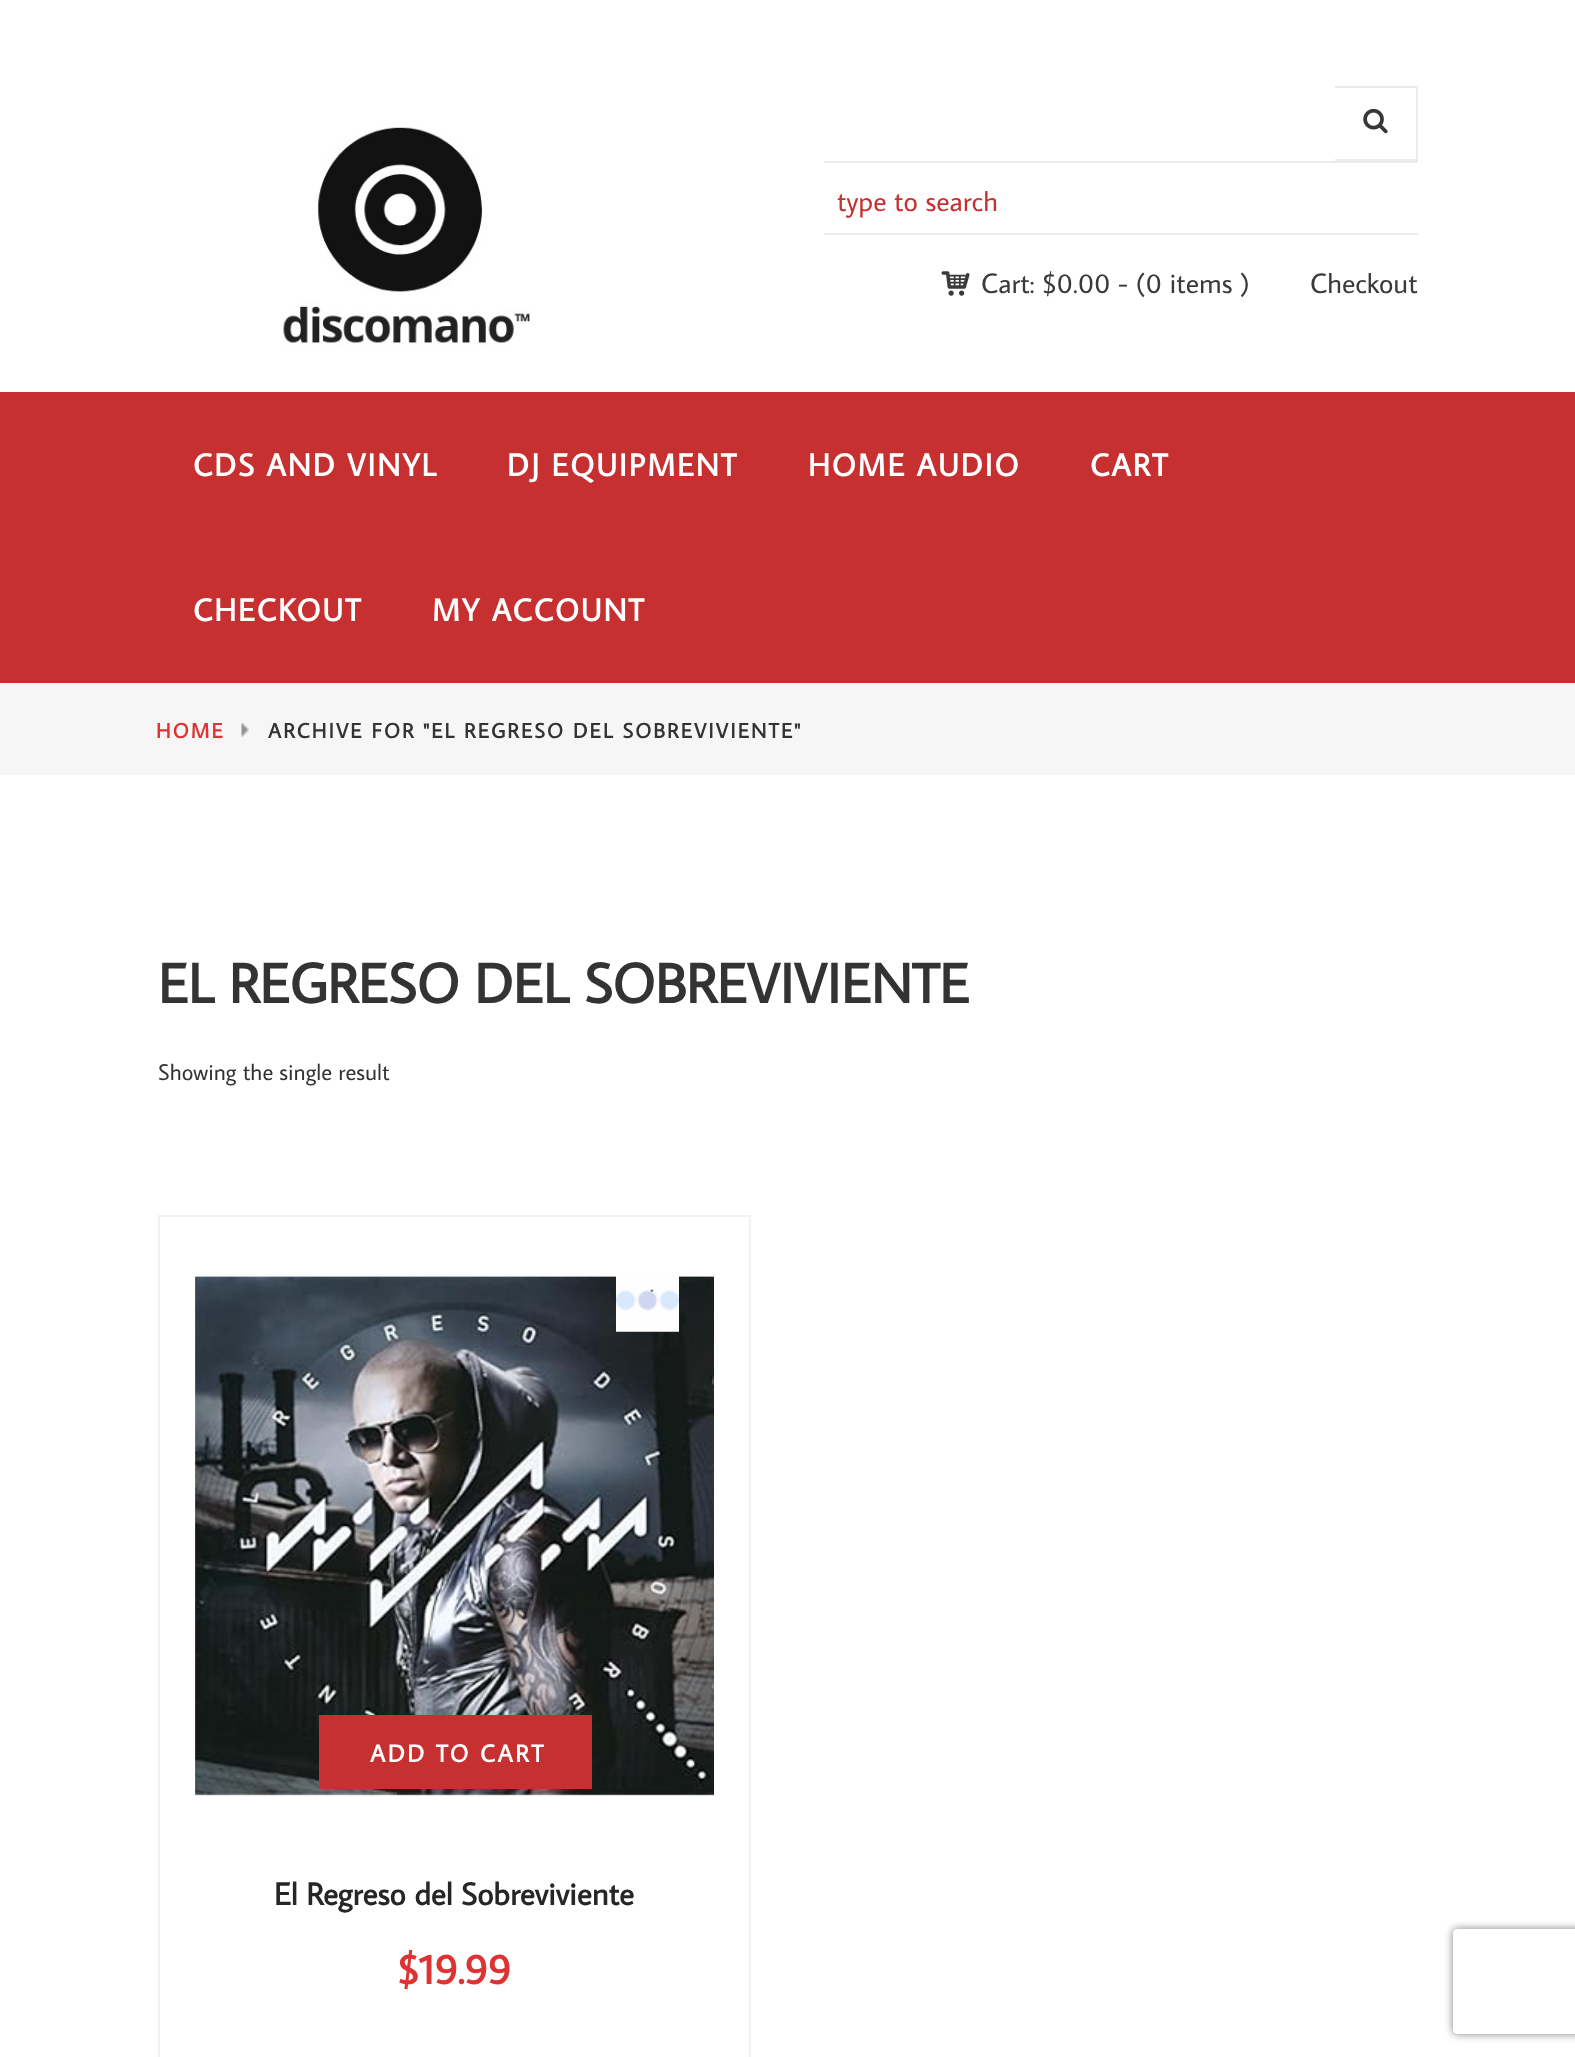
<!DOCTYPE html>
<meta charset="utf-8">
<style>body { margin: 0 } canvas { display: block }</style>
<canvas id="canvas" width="1575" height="2057"></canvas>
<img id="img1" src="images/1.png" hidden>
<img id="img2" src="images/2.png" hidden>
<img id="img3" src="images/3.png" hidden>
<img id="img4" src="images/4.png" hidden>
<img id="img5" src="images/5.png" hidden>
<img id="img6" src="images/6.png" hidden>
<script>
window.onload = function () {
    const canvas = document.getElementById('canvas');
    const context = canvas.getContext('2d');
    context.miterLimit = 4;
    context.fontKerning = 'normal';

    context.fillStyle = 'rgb(255, 255, 255)';
    context.fillRect(0, 0, 1575, 2057);
    context.drawImage(document.getElementById('img1'), 283, 127, 248, 219);
    context.fillStyle = 'rgb(235, 235, 235)';
    context.fillRect(1335, 86, 83, 2);
    context.fillRect(1416, 86, 2, 75);
    context.fillRect(1335, 159, 83, 2);
    context.drawImage(document.getElementById('img2'), 1363, 108, 25, 26);
    context.fillRect(824, 161, 594, 2);
    context.fillRect(824, 233, 594, 2);
    context.drawImage(document.getElementById('img3'), 941, 271, 29, 25);
    context.fillStyle = 'rgb(199, 48, 48)';
    context.fillRect(0, 392, 1575, 291);
    context.fillStyle = 'rgb(246, 246, 246)';
    context.fillRect(0, 683, 1575, 92);
    context.drawImage(document.getElementById('img4'), 241, 722, 8, 15);
    context.strokeStyle = 'rgb(242, 242, 242)';
    context.lineWidth = 2;
    context.strokeRect(159, 1216, 591, 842);
    context.drawImage(document.getElementById('img5'), 195, 1276, 519, 520);
    context.drawImage(document.getElementById('img6'), 616, 1276, 63, 56);
    context.fillStyle = 'rgb(199, 48, 48)';
    context.fillRect(319, 1715, 273, 74);
    context.save();
    context.beginPath();
    context.moveTo(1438, 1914);
    context.lineTo(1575, 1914);
    context.lineTo(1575, 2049);
    context.lineTo(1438, 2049);
    context.closePath();
    context.moveTo(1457, 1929);
    context.lineTo(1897, 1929);
    context.bezierCurveTo(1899, 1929, 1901, 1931, 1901, 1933);
    context.lineTo(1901, 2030);
    context.bezierCurveTo(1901, 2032, 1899, 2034, 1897, 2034);
    context.lineTo(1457, 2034);
    context.bezierCurveTo(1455, 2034, 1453, 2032, 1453, 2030);
    context.lineTo(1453, 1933);
    context.bezierCurveTo(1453, 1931, 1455, 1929, 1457, 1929);
    context.closePath();
    context.clip('evenodd');
    context.fillStyle = 'rgb(128, 128, 128)';
    context.filter = 'blur(4.5px)';
    context.beginPath();
    context.roundRect(1453, 1929, 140, 105, 4);
    context.fill();
    context.filter = 'none';
    context.restore();
    context.font = '28px Average Sans';
    context.fillText('type to search', 837, 211);
    context.fillStyle = 'rgb(58, 58, 58)';
    context.fillText('Cart: $0.00 - (0 items )', 981, 293);
    context.fillText('Checkout', 1310, 293);
    context.letterSpacing = '1.9px';
    context.font = 'bold 31.5px Average Sans';
    context.fillStyle = 'rgb(255, 255, 255)';
    context.fillText('CDS AND VINYL', 193, 476);
    context.fillText('DJ EQUIPMENT', 507, 476);
    context.fillText('HOME AUDIO', 808, 476);
    context.fillText('CART', 1090, 476);
    context.fillText('CHECKOUT', 193, 621);
    context.fillText('MY ACCOUNT', 432, 621);
    context.letterSpacing = '2.1px';
    context.font = 'bold 21px Average Sans';
    context.fillStyle = 'rgb(221, 51, 51)';
    context.fillText('HOME', 156, 738);
    context.fillStyle = 'rgb(51, 51, 51)';
    context.fillText('ARCHIVE FOR "EL REGRESO DEL SOBREVIVIENTE"', 268, 738);
    context.letterSpacing = '0px';
    context.font = 'bold 56px Average Sans';
    context.fillText('EL REGRESO DEL SOBREVIVIENTE', 158, 1003);
    context.font = '22.75px Average Sans';
    context.fillText('Showing the single result', 158, 1080);
    context.letterSpacing = '2.5px';
    context.font = 'bold 24.5px Average Sans';
    context.fillStyle = 'rgb(255, 255, 255)';
    context.fillText('ADD TO CART', 370, 1762);
    context.letterSpacing = '0px';
    context.font = 'bold 31.5px Average Sans';
    context.fillStyle = 'rgb(38, 38, 38)';
    context.fillText('El Regreso del Sobreviviente', 274, 1905);
    context.font = 'bold 42px Average Sans';
    context.fillStyle = 'rgb(221, 51, 51)';
    context.fillText('$19.99', 397, 1984);
};
</script>
